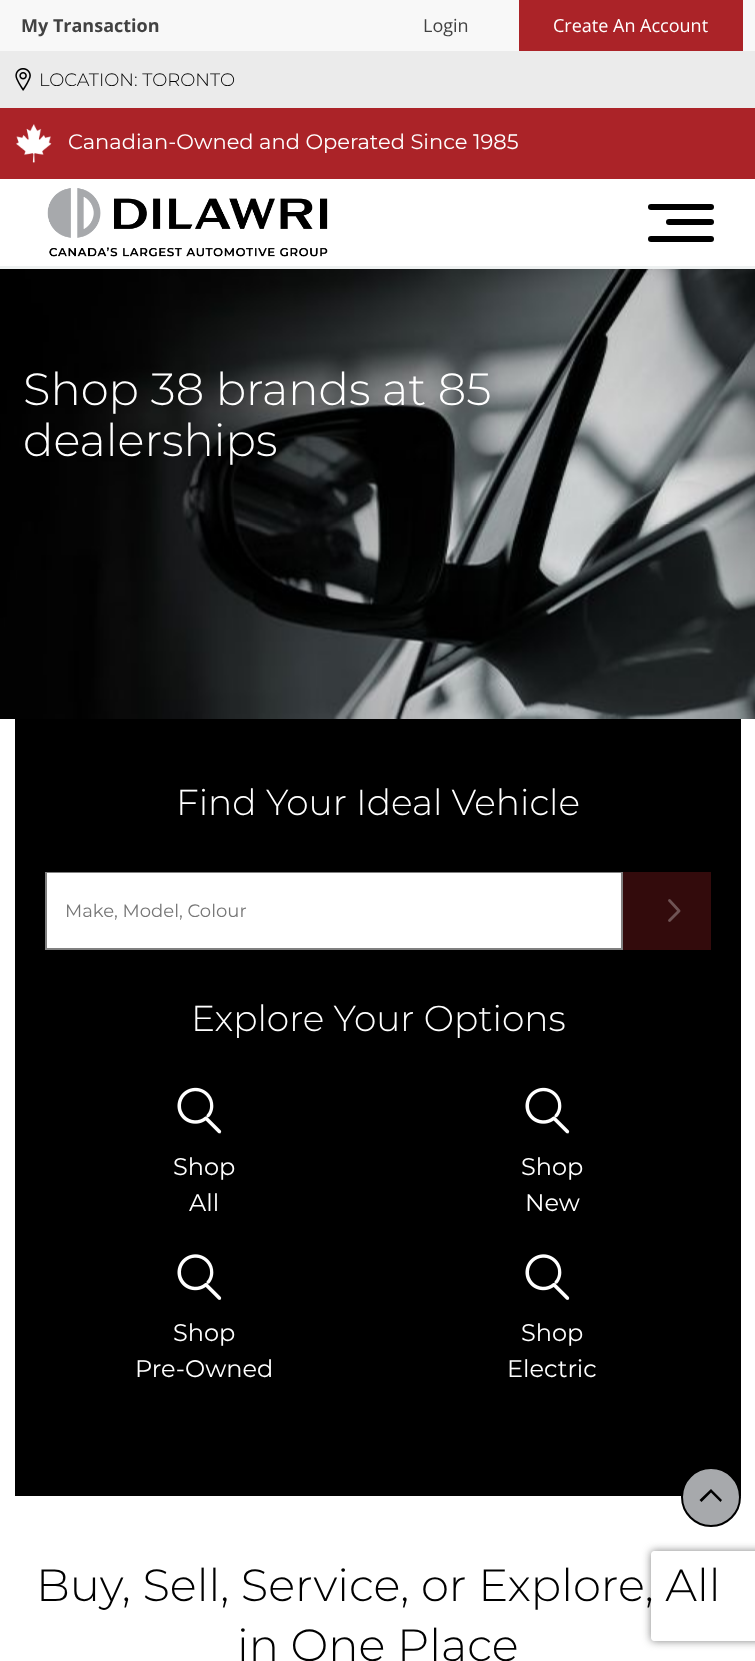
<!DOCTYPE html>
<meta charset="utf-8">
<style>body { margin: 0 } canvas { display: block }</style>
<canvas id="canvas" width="755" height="1661"></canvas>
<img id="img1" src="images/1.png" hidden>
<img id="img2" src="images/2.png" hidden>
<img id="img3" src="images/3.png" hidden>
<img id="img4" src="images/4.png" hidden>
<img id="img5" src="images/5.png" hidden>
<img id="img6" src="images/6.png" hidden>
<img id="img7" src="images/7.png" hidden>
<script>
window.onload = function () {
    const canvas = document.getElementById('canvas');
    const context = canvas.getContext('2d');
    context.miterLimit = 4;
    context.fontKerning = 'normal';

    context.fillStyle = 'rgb(255, 255, 255)';
    context.fillRect(0, 0, 755, 1661);
    context.fillStyle = 'rgb(248, 248, 248)';
    context.fillRect(0, 0, 755, 51);
    context.fillStyle = 'rgb(171, 35, 40)';
    context.fillRect(519, 0, 224, 51);
    context.fillStyle = 'rgb(235, 235, 235)';
    context.fillRect(0, 51, 755, 57);
    context.drawImage(document.getElementById('img1'), 15, 68, 16, 23);
    context.fillStyle = 'rgb(171, 35, 40)';
    context.fillRect(0, 108, 755, 71);
    context.drawImage(document.getElementById('img2'), 16, 124, 36, 39);
    context.fillStyle = 'rgb(238, 241, 241)';
    context.fillRect(0, 266, 755, 3);
    context.drawImage(document.getElementById('img3'), 47, 188, 281, 69);
    context.fillStyle = 'rgb(0, 0, 0)';
    context.beginPath();
    context.roundRect(648, 204, 66, 6, 3);
    context.fill();
    context.beginPath();
    context.roundRect(666, 219, 48, 6, 3);
    context.fill();
    context.beginPath();
    context.roundRect(648, 236, 66, 6, 3);
    context.fill();
    context.drawImage(document.getElementById('img4'), 0, 269, 755, 450);
    context.fillRect(15, 719, 726, 777);
    context.strokeStyle = 'rgb(128, 128, 128)';
    context.lineWidth = 2;
    context.strokeRect(46, 873, 576, 76);
    context.fillStyle = 'rgb(255, 255, 255)';
    context.fillRect(47, 873, 574, 75);
    context.fillStyle = 'rgb(51, 11, 12)';
    context.fillRect(623, 872, 88, 78);
    context.drawImage(document.getElementById('img5'), 668, 899, 13, 23);
    context.drawImage(document.getElementById('img6'), 177, 1087, 45, 47);
    context.drawImage(document.getElementById('img6'), 525, 1087, 45, 47);
    context.drawImage(document.getElementById('img7'), 177, 1254, 45, 46);
    context.drawImage(document.getElementById('img7'), 525, 1254, 45, 46);
    context.fillStyle = 'rgb(167, 169, 172)';
    context.beginPath();
    context.arc(711, 1497, 29, 0, 2 * Math.PI);
    context.fill();
    context.strokeStyle = 'rgb(0, 0, 0)';
    context.stroke();
    context.fillStyle = 'rgb(0, 0, 0)';
    context.beginPath();
    context.moveTo(711, 1492.5);
    context.lineTo(701.5, 1502);
    context.lineTo(699.5, 1500);
    context.lineTo(711, 1489);
    context.lineTo(722, 1500);
    context.lineTo(720.5, 1502);
    context.closePath();
    context.fill();
    context.save();
    context.beginPath();
    context.moveTo(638, 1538);
    context.lineTo(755, 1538);
    context.lineTo(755, 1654);
    context.lineTo(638, 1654);
    context.closePath();
    context.moveTo(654, 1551);
    context.lineTo(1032, 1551);
    context.bezierCurveTo(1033.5, 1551, 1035, 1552.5, 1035, 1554);
    context.lineTo(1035, 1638);
    context.bezierCurveTo(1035, 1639.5, 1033.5, 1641, 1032, 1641);
    context.lineTo(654, 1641);
    context.bezierCurveTo(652.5, 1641, 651, 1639.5, 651, 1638);
    context.lineTo(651, 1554);
    context.bezierCurveTo(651, 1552.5, 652.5, 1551, 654, 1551);
    context.closePath();
    context.clip('evenodd');
    context.fillStyle = 'rgb(128, 128, 128)';
    context.filter = 'blur(4px)';
    context.beginPath();
    context.roundRect(651, 1551, 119, 90, 3);
    context.fill();
    context.filter = 'none';
    context.restore();
    context.font = 'bold 18px Open Sans';
    context.fillStyle = 'rgb(66, 66, 66)';
    context.fillText('My Transaction', 21, 32);
    context.font = '18px Open Sans';
    context.fillText('Login', 423, 32);
    context.fillStyle = 'rgb(255, 255, 255)';
    context.fillText('Create An Account', 553, 32);
    context.font = '300 18px Montserrat';
    context.fillStyle = 'rgb(0, 0, 0)';
    context.fillText('LOCATION: TORONTO', 39, 86);
    context.font = '21px Montserrat';
    context.fillStyle = 'rgb(255, 255, 255)';
    context.fillText('Canadian-Owned and Operated Since 1985', 68, 149);
    context.font = '300 45px Montserrat';
    context.fillText('Shop 38 brands at 85', 23, 405);
    context.fillText('dealerships', 23, 456);
    context.font = '300 36px Montserrat';
    context.fillText('Find Your Ideal Vehicle', 176, 815);
    context.font = '18px Montserrat';
    context.fillStyle = 'rgb(118, 118, 118)';
    context.fillText('Make, Model, Colour', 65, 917);
    context.font = '300 36px Montserrat';
    context.fillStyle = 'rgb(255, 255, 255)';
    context.fillText('Explore Your Options', 191, 1031);
    context.font = '24px Montserrat';
    context.fillText('Shop', 173, 1175);
    context.fillText('All', 189, 1211);
    context.fillText('Shop', 521, 1175);
    context.fillText('New', 525, 1211);
    context.fillText('Shop', 173, 1341);
    context.fillText('Pre-Owned', 135, 1377);
    context.fillText('Shop', 521, 1341);
    context.fillText('Electric', 507, 1377);
    context.font = '300 45px Montserrat';
    context.fillStyle = 'rgb(0, 0, 0)';
    context.fillText('Buy, Sell, Service, or Explore, All', 36, 1601);
    context.fillText('in One Place', 237, 1661);
};
</script>
